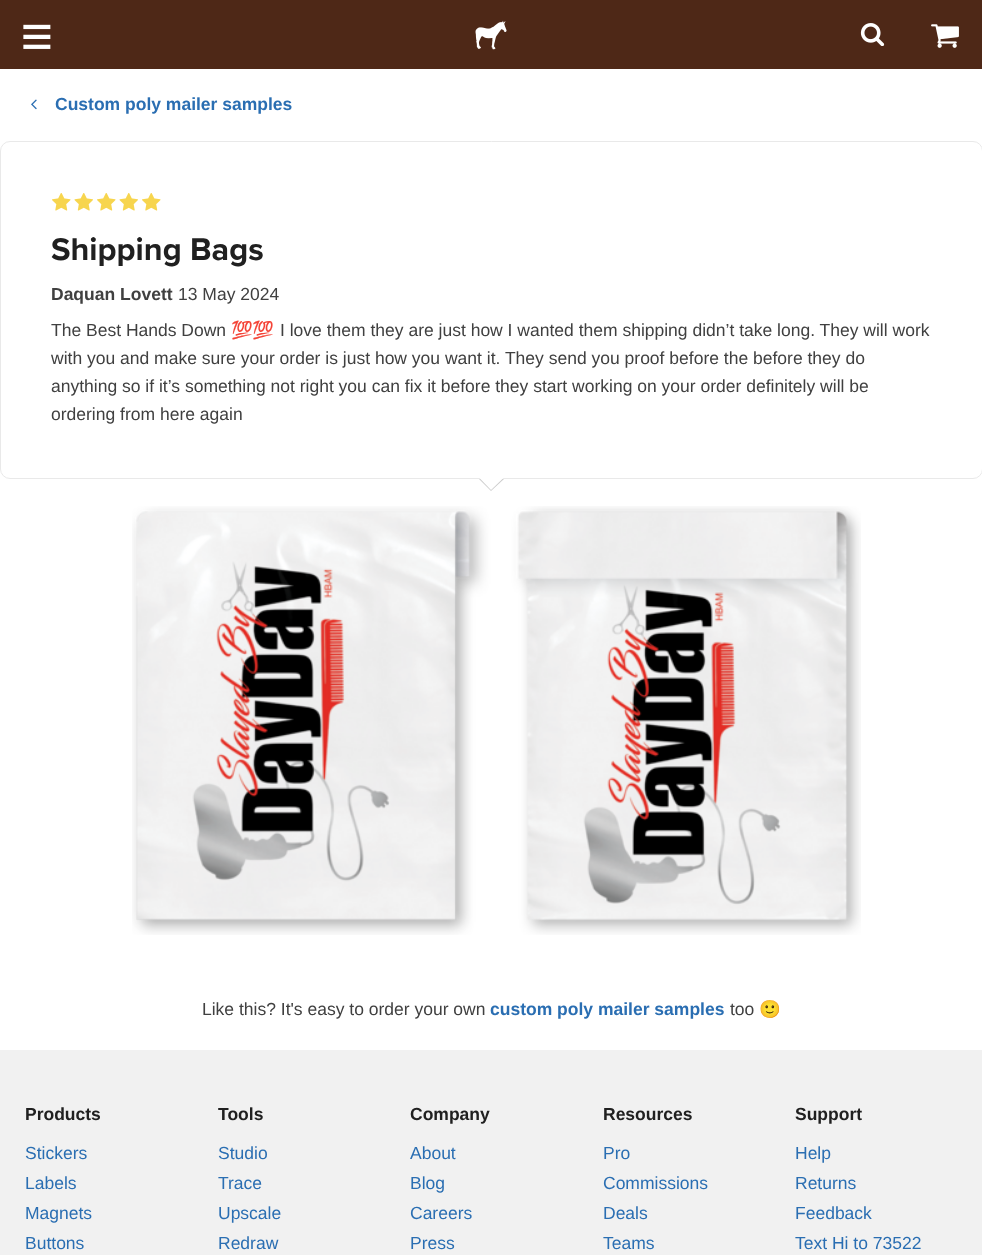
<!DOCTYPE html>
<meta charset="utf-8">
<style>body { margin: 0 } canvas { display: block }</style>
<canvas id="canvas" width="982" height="1255"></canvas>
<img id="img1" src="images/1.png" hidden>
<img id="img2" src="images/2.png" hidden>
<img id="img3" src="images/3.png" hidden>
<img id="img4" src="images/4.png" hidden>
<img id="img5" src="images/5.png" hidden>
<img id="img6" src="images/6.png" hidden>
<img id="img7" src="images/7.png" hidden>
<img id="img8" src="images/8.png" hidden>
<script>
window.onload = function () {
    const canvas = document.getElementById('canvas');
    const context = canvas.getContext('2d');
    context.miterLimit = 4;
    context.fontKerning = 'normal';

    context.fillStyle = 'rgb(255, 255, 255)';
    context.fillRect(0, 0, 982, 1255);
    context.fillStyle = 'rgb(78, 40, 23)';
    context.fillRect(0, 0, 982, 69);
    context.drawImage(document.getElementById('img1'), 23, 24, 28, 25);
    context.drawImage(document.getElementById('img2'), 475, 20, 32, 30);
    context.drawImage(document.getElementById('img3'), 860, 23, 25, 23);
    context.drawImage(document.getElementById('img4'), 931, 24, 28, 24);
    context.drawImage(document.getElementById('img5'), 31, 99, 6, 11);
    context.beginPath();
    context.roundRect(0.5, 141.5, 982, 337, 9.5);
    context.strokeStyle = 'rgb(233, 233, 233)';
    context.stroke();
    context.drawImage(document.getElementById('img6'), 52, 193, 19, 18);
    context.drawImage(document.getElementById('img7'), 74, 193, 19, 18);
    context.drawImage(document.getElementById('img6'), 97, 193, 19, 18);
    context.drawImage(document.getElementById('img7'), 119, 193, 19, 18);
    context.drawImage(document.getElementById('img6'), 142, 193, 19, 18);
    context.fillStyle = 'rgb(204, 204, 204)';
    context.beginPath();
    context.moveTo(479, 479);
    context.lineTo(504, 479);
    context.lineTo(491, 491);
    context.closePath();
    context.fill();
    context.fillStyle = 'rgb(255, 255, 255)';
    context.beginPath();
    context.moveTo(479, 477.5);
    context.lineTo(504, 477.5);
    context.lineTo(491, 490);
    context.closePath();
    context.fill();
    context.drawImage(document.getElementById('img8'), 132, 506, 729, 429);
    context.fillStyle = 'rgb(241, 241, 241)';
    context.fillRect(0, 1050, 982, 205);
    context.font = 'bold 17.5px Liberation Sans';
    context.fillStyle = 'rgb(42, 110, 178)';
    context.fillText('Custom poly mailer samples', 55, 110);
    context.font = 'bold 32.5px Proxima Nova';
    context.fillStyle = 'rgb(32, 32, 32)';
    context.fillText('Shipping Bags', 51, 260);
    context.font = 'bold 17.5px Liberation Sans';
    context.fillStyle = 'rgb(64, 64, 64)';
    context.fillText('Daquan Lovett', 51, 300);
    context.font = '17.5px Liberation Sans';
    context.fillText('13 May 2024', 178, 300);
    context.fillText('The Best Hands Down', 51, 336);
    context.font = '17.5px Noto Color Emoji';
    context.fillText('💯💯', 231, 336);
    context.font = '17.5px Liberation Sans';
    context.fillText('I love them they are just how I wanted them shipping didn’t take long. They will work', 280, 336);
    context.fillText('with you and make sure your order is just how you want it. They send you proof before the before they do', 51, 364);
    context.fillText('anything so if it’s something not right you can fix it before they start working on your order definitely will be', 51, 392);
    context.fillText('ordering from here again', 51, 420);
    context.fillText('Like this? It\'s easy to order your own', 202, 1015);
    context.font = 'bold 17.5px Liberation Sans';
    context.fillStyle = 'rgb(42, 110, 178)';
    context.fillText('custom poly mailer samples', 490, 1015);
    context.font = '17.5px Liberation Sans';
    context.fillStyle = 'rgb(64, 64, 64)';
    context.fillText('too', 730, 1015);
    context.font = '17.5px Noto Color Emoji';
    context.fillText('🙂', 759, 1015);
    context.font = 'bold 17.5px Liberation Sans';
    context.fillStyle = 'rgb(32, 32, 32)';
    context.fillText('Products', 25, 1120);
    context.font = '17.5px Liberation Sans';
    context.fillStyle = 'rgb(42, 110, 178)';
    context.fillText('Stickers', 25, 1159);
    context.fillText('Labels', 25, 1189);
    context.fillText('Magnets', 25, 1219);
    context.fillText('Buttons', 25, 1249);
    context.font = 'bold 17.5px Liberation Sans';
    context.fillStyle = 'rgb(32, 32, 32)';
    context.fillText('Tools', 218, 1120);
    context.font = '17.5px Liberation Sans';
    context.fillStyle = 'rgb(42, 110, 178)';
    context.fillText('Studio', 218, 1159);
    context.fillText('Trace', 218, 1189);
    context.fillText('Upscale', 218, 1219);
    context.fillText('Redraw', 218, 1249);
    context.font = 'bold 17.5px Liberation Sans';
    context.fillStyle = 'rgb(32, 32, 32)';
    context.fillText('Company', 410, 1120);
    context.font = '17.5px Liberation Sans';
    context.fillStyle = 'rgb(42, 110, 178)';
    context.fillText('About', 410, 1159);
    context.fillText('Blog', 410, 1189);
    context.fillText('Careers', 410, 1219);
    context.fillText('Press', 410, 1249);
    context.font = 'bold 17.5px Liberation Sans';
    context.fillStyle = 'rgb(32, 32, 32)';
    context.fillText('Resources', 603, 1120);
    context.font = '17.5px Liberation Sans';
    context.fillStyle = 'rgb(42, 110, 178)';
    context.fillText('Pro', 603, 1159);
    context.fillText('Commissions', 603, 1189);
    context.fillText('Deals', 603, 1219);
    context.fillText('Teams', 603, 1249);
    context.font = 'bold 17.5px Liberation Sans';
    context.fillStyle = 'rgb(32, 32, 32)';
    context.fillText('Support', 795, 1120);
    context.font = '17.5px Liberation Sans';
    context.fillStyle = 'rgb(42, 110, 178)';
    context.fillText('Help', 795, 1159);
    context.fillText('Returns', 795, 1189);
    context.fillText('Feedback', 795, 1219);
    context.fillText('Text Hi to 73522', 795, 1249);
};
</script>
